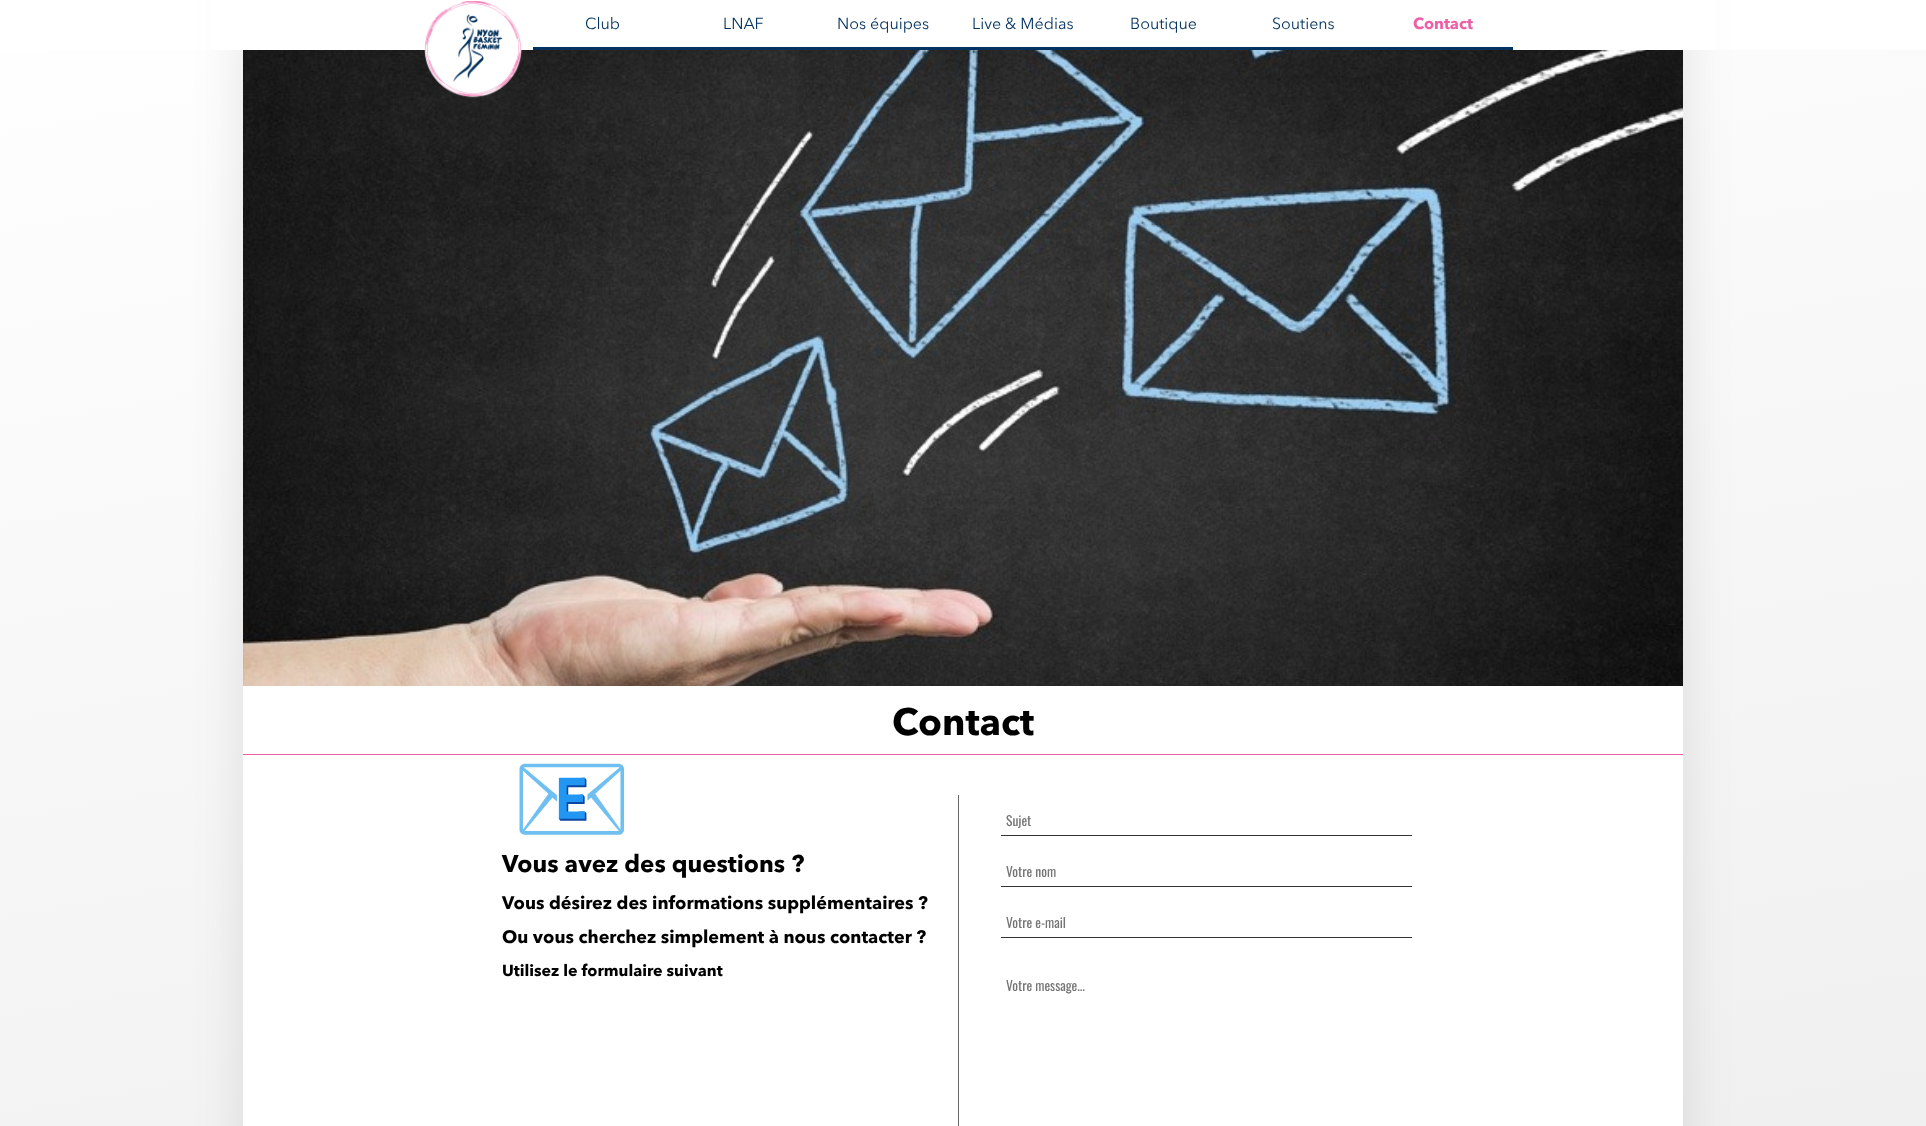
<!DOCTYPE html>
<meta charset="utf-8">
<style>body { margin: 0 } canvas { display: block }</style>
<canvas id="canvas" width="1926" height="1126"></canvas>
<img id="img1" src="images/2.png" hidden>
<img id="img2" src="images/1.png" hidden>
<script>
window.onload = function () {
    const canvas = document.getElementById('canvas');
    const context = canvas.getContext('2d');
    context.miterLimit = 4;
    context.fontKerning = 'normal';
    let gradient;

    context.fillStyle = 'rgb(255, 255, 255)';
    context.fillRect(0, 0, 1926, 1126);
    gradient = context.createLinearGradient(1114, 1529, 812, -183);
    gradient.addColorStop(0, 'rgb(237, 237, 237)');
    gradient.addColorStop(1, 'rgb(255, 255, 255)');
    context.fillStyle = gradient;
    context.fillRect(0, 50, 1926, 1076);
    context.fillStyle = 'rgba(0, 0, 0, 0.1)';
    context.filter = 'blur(25px)';
    context.beginPath();
    context.rect(243, -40, 1440, 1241);
    context.fill();
    context.filter = 'none';
    context.fillStyle = 'rgb(255, 255, 255)';
    context.fillRect(211, 0, 1504, 50);
    context.drawImage(document.getElementById('img1'), 243, 50, 1440, 636);
    context.drawImage(document.getElementById('img2'), 424, 0, 98, 98);
    context.fillStyle = 'rgb(1, 49, 94)';
    context.fillRect(533, 47, 980, 3);
    context.fillStyle = 'rgb(255, 255, 255)';
    context.fillRect(243, 686, 1440, 440);
    context.fillStyle = 'rgb(238, 95, 167)';
    context.fillRect(243, 754, 1440, 1);
    context.fillStyle = 'rgb(102, 102, 102)';
    context.fillRect(958, 795, 1, 331);
    context.fillStyle = 'rgb(51, 51, 51)';
    context.fillRect(1001, 835, 411, 1);
    context.fillRect(1001, 886, 411, 1);
    context.fillRect(1001, 937, 411, 1);
    context.font = '16px Avenir Next';
    context.fillStyle = 'rgb(1, 49, 94)';
    context.fillText('Club', 585, 29);
    context.fillText('LNAF', 723, 29);
    context.fillText('Nos équipes', 837, 29);
    context.fillText('Live & Médias', 972, 29);
    context.fillText('Boutique', 1130, 29);
    context.fillText('Soutiens', 1272, 29);
    context.font = 'bold 16px Avenir Next';
    context.fillStyle = 'rgb(238, 95, 167)';
    context.fillText('Contact', 1413, 29);
    context.font = 'bold 38px Avenir Next';
    context.fillStyle = 'rgb(0, 0, 0)';
    context.fillText('Contact', 892, 735);
    context.font = '96px Noto Color Emoji';
    context.fillText('📧', 512, 832);
    context.font = 'bold 24px Avenir Next';
    context.fillText('Vous avez des questions ?', 502, 872);
    context.font = 'bold 18px Avenir Next';
    context.fillText('Vous désirez des informations supplémentaires ?', 502, 909);
    context.fillText('Ou vous cherchez simplement à nous contacter ?', 502, 943);
    context.font = 'bold 16px Avenir Next';
    context.fillText('Utilisez le formulaire suivant', 502, 976);
    context.font = '13.5px Oswald';
    context.fillStyle = 'rgb(117, 117, 117)';
    context.fillText('Sujet', 1006, 826);
    context.fillText('Votre nom', 1006, 877);
    context.fillText('Votre e-mail', 1006, 928);
    context.fillText('Votre message...', 1006, 991);
};
</script>
